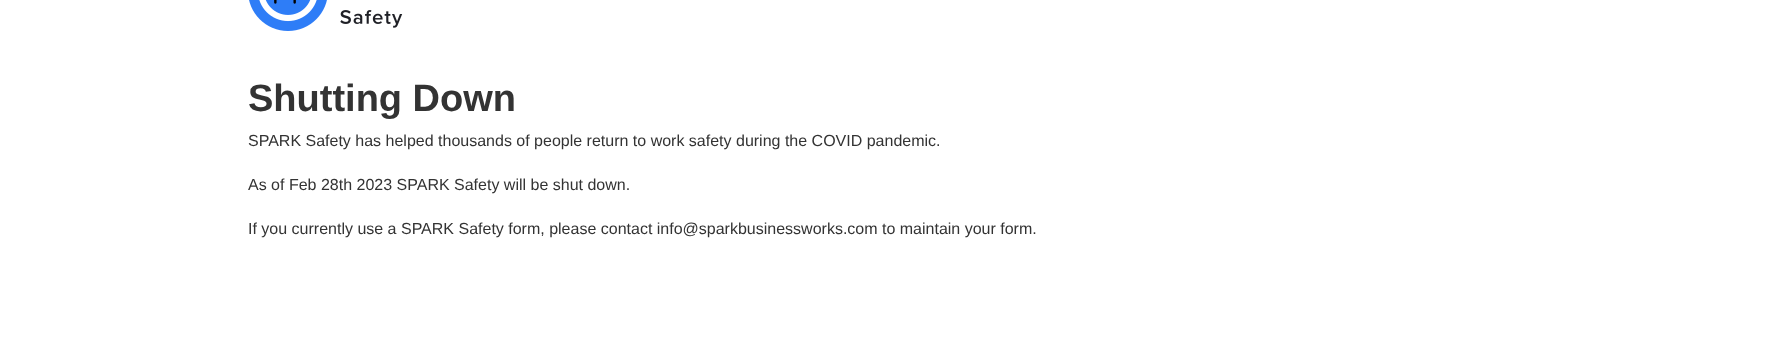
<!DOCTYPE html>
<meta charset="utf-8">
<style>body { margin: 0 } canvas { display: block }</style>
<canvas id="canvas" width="1775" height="340"></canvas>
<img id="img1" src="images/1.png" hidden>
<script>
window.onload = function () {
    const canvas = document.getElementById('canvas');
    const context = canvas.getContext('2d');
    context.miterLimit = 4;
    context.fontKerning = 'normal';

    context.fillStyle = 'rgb(255, 255, 255)';
    context.fillRect(0, 0, 1775, 340);
    context.drawImage(document.getElementById('img1'), 249, 0, 154, 31);
    context.font = 'bold 38px Liberation Sans';
    context.fillStyle = 'rgb(51, 51, 51)';
    context.fillText('Shutting Down', 248, 111);
    context.font = '16px Liberation Sans';
    context.fillText('SPARK Safety has helped thousands of people return to work safety during the COVID pandemic.', 248, 146);
    context.fillText('As of Feb 28th 2023 SPARK Safety will be shut down.', 248, 190);
    context.fillText('If you currently use a SPARK Safety form, please contact info@sparkbusinessworks.com to maintain your form.', 248, 234);
};
</script>
